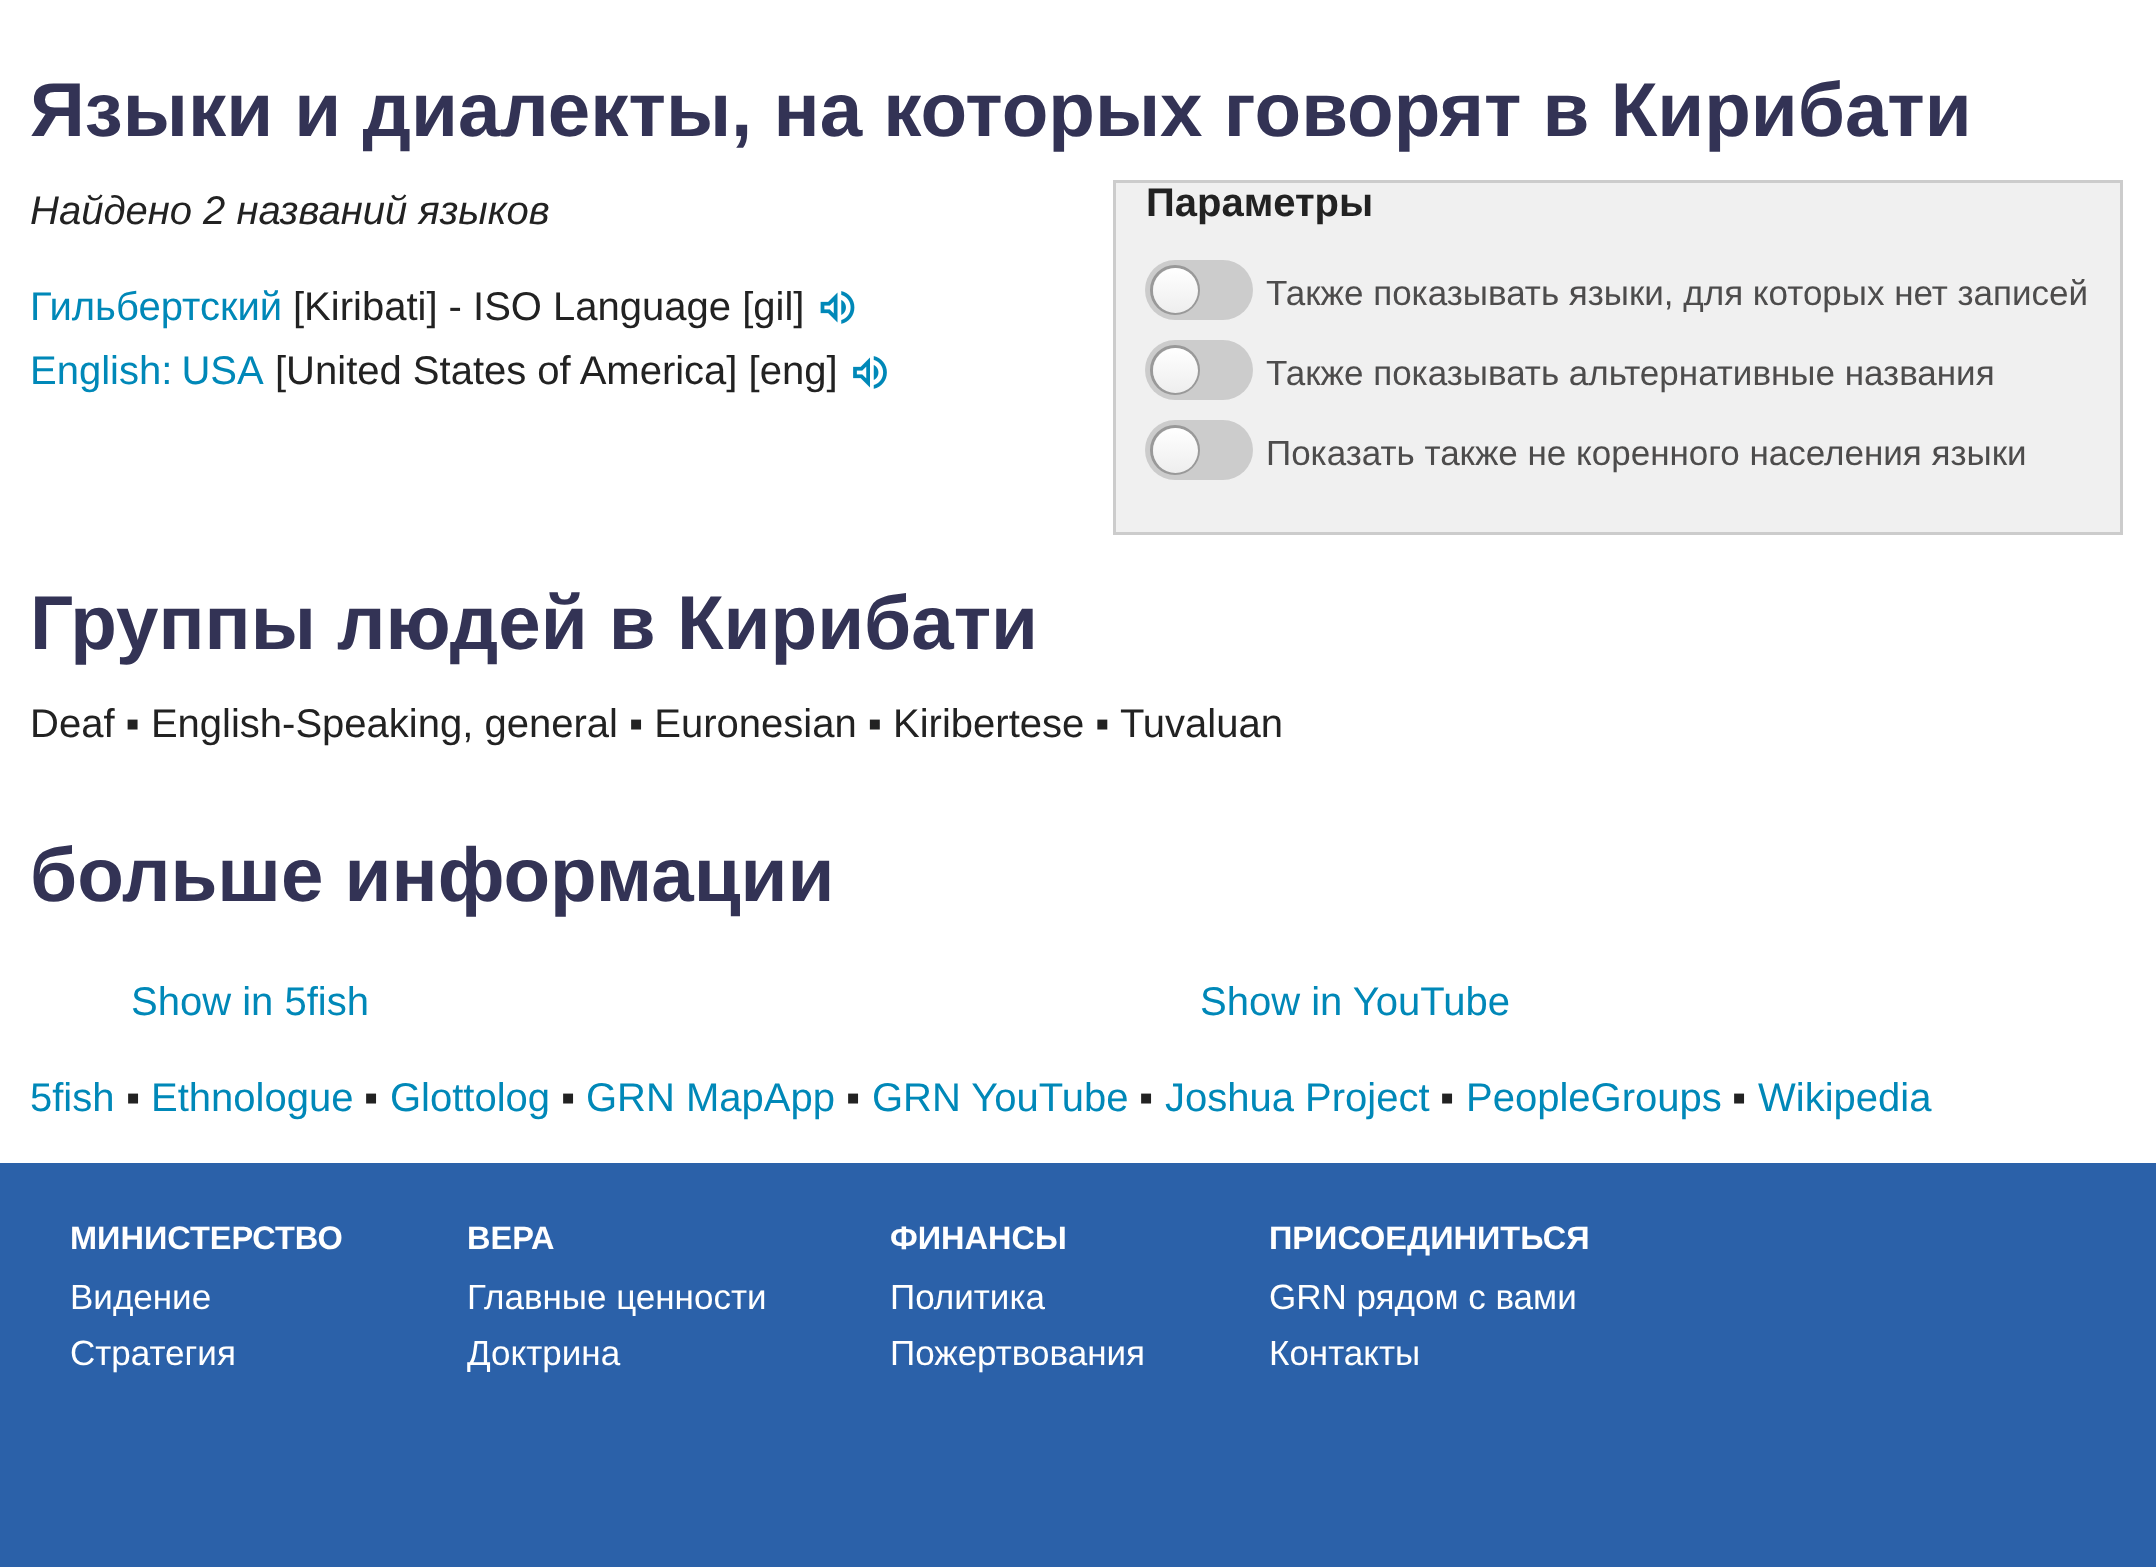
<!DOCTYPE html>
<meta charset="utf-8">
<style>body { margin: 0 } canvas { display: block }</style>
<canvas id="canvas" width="2156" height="1567"></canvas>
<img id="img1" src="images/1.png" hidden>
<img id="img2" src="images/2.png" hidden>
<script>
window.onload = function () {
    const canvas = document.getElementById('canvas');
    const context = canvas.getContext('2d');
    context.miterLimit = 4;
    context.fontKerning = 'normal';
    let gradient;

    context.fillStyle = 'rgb(255, 255, 255)';
    context.fillRect(0, 0, 2156, 1567);
    context.drawImage(document.getElementById('img1'), 820, 291, 35, 33);
    context.drawImage(document.getElementById('img2'), 853, 356, 34, 33);
    context.fillStyle = 'rgb(240, 240, 240)';
    context.beginPath();
    context.rect(1114.5, 181.5, 1007, 352);
    context.fill();
    context.strokeStyle = 'rgb(204, 204, 204)';
    context.lineWidth = 3;
    context.stroke();
    context.fillStyle = 'rgb(204, 204, 204)';
    context.beginPath();
    context.roundRect(1145, 260, 108, 60, 30);
    context.fill();
    context.beginPath();
    context.arc(1175, 290, 23.5, 0, 2 * Math.PI);
    context.strokeStyle = 'rgb(153, 153, 153)';
    context.stroke();
    gradient = context.createLinearGradient(1175, 268, 1175, 313);
    gradient.addColorStop(0, 'rgb(255, 255, 255)');
    gradient.addColorStop(1, 'rgb(238, 238, 238)');
    context.fillStyle = gradient;
    context.beginPath();
    context.arc(1175.5, 290.5, 22.5, 0, 2 * Math.PI);
    context.fill();
    context.fillStyle = 'rgb(204, 204, 204)';
    context.beginPath();
    context.roundRect(1145, 340, 108, 60, 30);
    context.fill();
    context.beginPath();
    context.arc(1175, 370, 23.5, 0, 2 * Math.PI);
    context.stroke();
    gradient = context.createLinearGradient(1175, 348, 1175, 393);
    gradient.addColorStop(0, 'rgb(255, 255, 255)');
    gradient.addColorStop(1, 'rgb(238, 238, 238)');
    context.fillStyle = gradient;
    context.beginPath();
    context.arc(1175.5, 370.5, 22.5, 0, 2 * Math.PI);
    context.fill();
    context.fillStyle = 'rgb(204, 204, 204)';
    context.beginPath();
    context.roundRect(1145, 420, 108, 60, 30);
    context.fill();
    context.beginPath();
    context.arc(1175, 450, 23.5, 0, 2 * Math.PI);
    context.stroke();
    gradient = context.createLinearGradient(1175, 428, 1175, 473);
    gradient.addColorStop(0, 'rgb(255, 255, 255)');
    gradient.addColorStop(1, 'rgb(238, 238, 238)');
    context.fillStyle = gradient;
    context.beginPath();
    context.arc(1175.5, 450.5, 22.5, 0, 2 * Math.PI);
    context.fill();
    context.fillStyle = 'rgb(43, 97, 169)';
    context.fillRect(0, 1163, 2156, 404);
    context.font = 'bold 76.35px Liberation Sans';
    context.fillStyle = 'rgb(51, 51, 85)';
    context.fillText('Языки и диалекты, на которых говорят в Кирибати', 30, 136);
    context.font = 'italic 40px Liberation Sans';
    context.fillStyle = 'rgb(34, 34, 34)';
    context.fillText('Найдено 2 названий языков', 30, 224);
    context.font = '40px Liberation Sans';
    context.fillStyle = 'rgb(0, 136, 184)';
    context.fillText('Гильбертский', 30, 320);
    context.fillStyle = 'rgb(34, 34, 34)';
    context.fillText('[Kiribati] - ISO Language [gil]', 293, 320);
    context.wordSpacing = '-2px';
    context.fillStyle = 'rgb(0, 136, 184)';
    context.fillText('English: USA', 30, 384);
    context.wordSpacing = '0px';
    context.fillStyle = 'rgb(34, 34, 34)';
    context.fillText('[United States of America] [eng]', 275, 384);
    context.font = 'bold 40px Liberation Sans';
    context.fillText('Параметры', 1146, 216);
    context.font = '35px Liberation Sans';
    context.fillStyle = 'rgb(77, 76, 76)';
    context.fillText('Также показывать языки, для которых нет записей', 1266, 305);
    context.fillText('Также показывать альтернативные названия', 1266, 385);
    context.fillText('Показать также не коренного населения языки', 1266, 465);
    context.font = 'bold 76.35px Liberation Sans';
    context.fillStyle = 'rgb(51, 51, 85)';
    context.fillText('Группы людей в Кирибати', 30, 649);
    context.font = '40px Liberation Sans';
    context.fillStyle = 'rgb(34, 34, 34)';
    context.fillText('Deaf ▪ English-Speaking, general ▪ Euronesian ▪ Kiribertese ▪ Tuvaluan', 30, 737);
    context.font = 'bold 76.35px Liberation Sans';
    context.fillStyle = 'rgb(51, 51, 85)';
    context.fillText('больше информации', 30, 901);
    context.font = '40px Liberation Sans';
    context.fillStyle = 'rgb(0, 136, 184)';
    context.fillText('Show in 5fish', 131, 1015);
    context.fillText('Show in YouTube', 1200, 1015);
    context.fillText('5fish', 30, 1111);
    context.fillStyle = 'rgb(34, 34, 34)';
    context.fillText('▪', 126, 1111);
    context.fillStyle = 'rgb(0, 136, 184)';
    context.fillText('Ethnologue', 151, 1111);
    context.fillStyle = 'rgb(34, 34, 34)';
    context.fillText('▪', 364, 1111);
    context.fillStyle = 'rgb(0, 136, 184)';
    context.fillText('Glottolog', 390, 1111);
    context.fillStyle = 'rgb(34, 34, 34)';
    context.fillText('▪', 561, 1111);
    context.fillStyle = 'rgb(0, 136, 184)';
    context.fillText('GRN MapApp', 586, 1111);
    context.fillStyle = 'rgb(34, 34, 34)';
    context.fillText('▪', 846, 1111);
    context.fillStyle = 'rgb(0, 136, 184)';
    context.fillText('GRN YouTube', 872, 1111);
    context.fillStyle = 'rgb(34, 34, 34)';
    context.fillText('▪', 1139, 1111);
    context.fillStyle = 'rgb(0, 136, 184)';
    context.fillText('Joshua Project', 1165, 1111);
    context.fillStyle = 'rgb(34, 34, 34)';
    context.fillText('▪', 1440, 1111);
    context.fillStyle = 'rgb(0, 136, 184)';
    context.fillText('PeopleGroups', 1466, 1111);
    context.fillStyle = 'rgb(34, 34, 34)';
    context.fillText('▪', 1732, 1111);
    context.fillStyle = 'rgb(0, 136, 184)';
    context.fillText('Wikipedia', 1758, 1111);
    context.font = 'bold 32.5px Liberation Sans';
    context.fillStyle = 'rgb(255, 255, 255)';
    context.fillText('МИНИСТЕРСТВО', 70, 1249);
    context.font = '35px Liberation Sans';
    context.fillText('Видение', 70, 1309);
    context.fillText('Стратегия', 70, 1365);
    context.font = 'bold 32.5px Liberation Sans';
    context.fillText('ВЕРА', 467, 1249);
    context.font = '35px Liberation Sans';
    context.fillText('Главные ценности', 467, 1309);
    context.fillText('Доктрина', 467, 1365);
    context.font = 'bold 32.5px Liberation Sans';
    context.fillText('ФИНАНСЫ', 890, 1249);
    context.font = '35px Liberation Sans';
    context.fillText('Политика', 890, 1309);
    context.fillText('Пожертвования', 890, 1365);
    context.font = 'bold 32.5px Liberation Sans';
    context.fillText('ПРИСОЕДИНИТЬСЯ', 1269, 1249);
    context.font = '35px Liberation Sans';
    context.fillText('GRN рядом с вами', 1269, 1309);
    context.fillText('Контакты', 1269, 1365);
};
</script>
